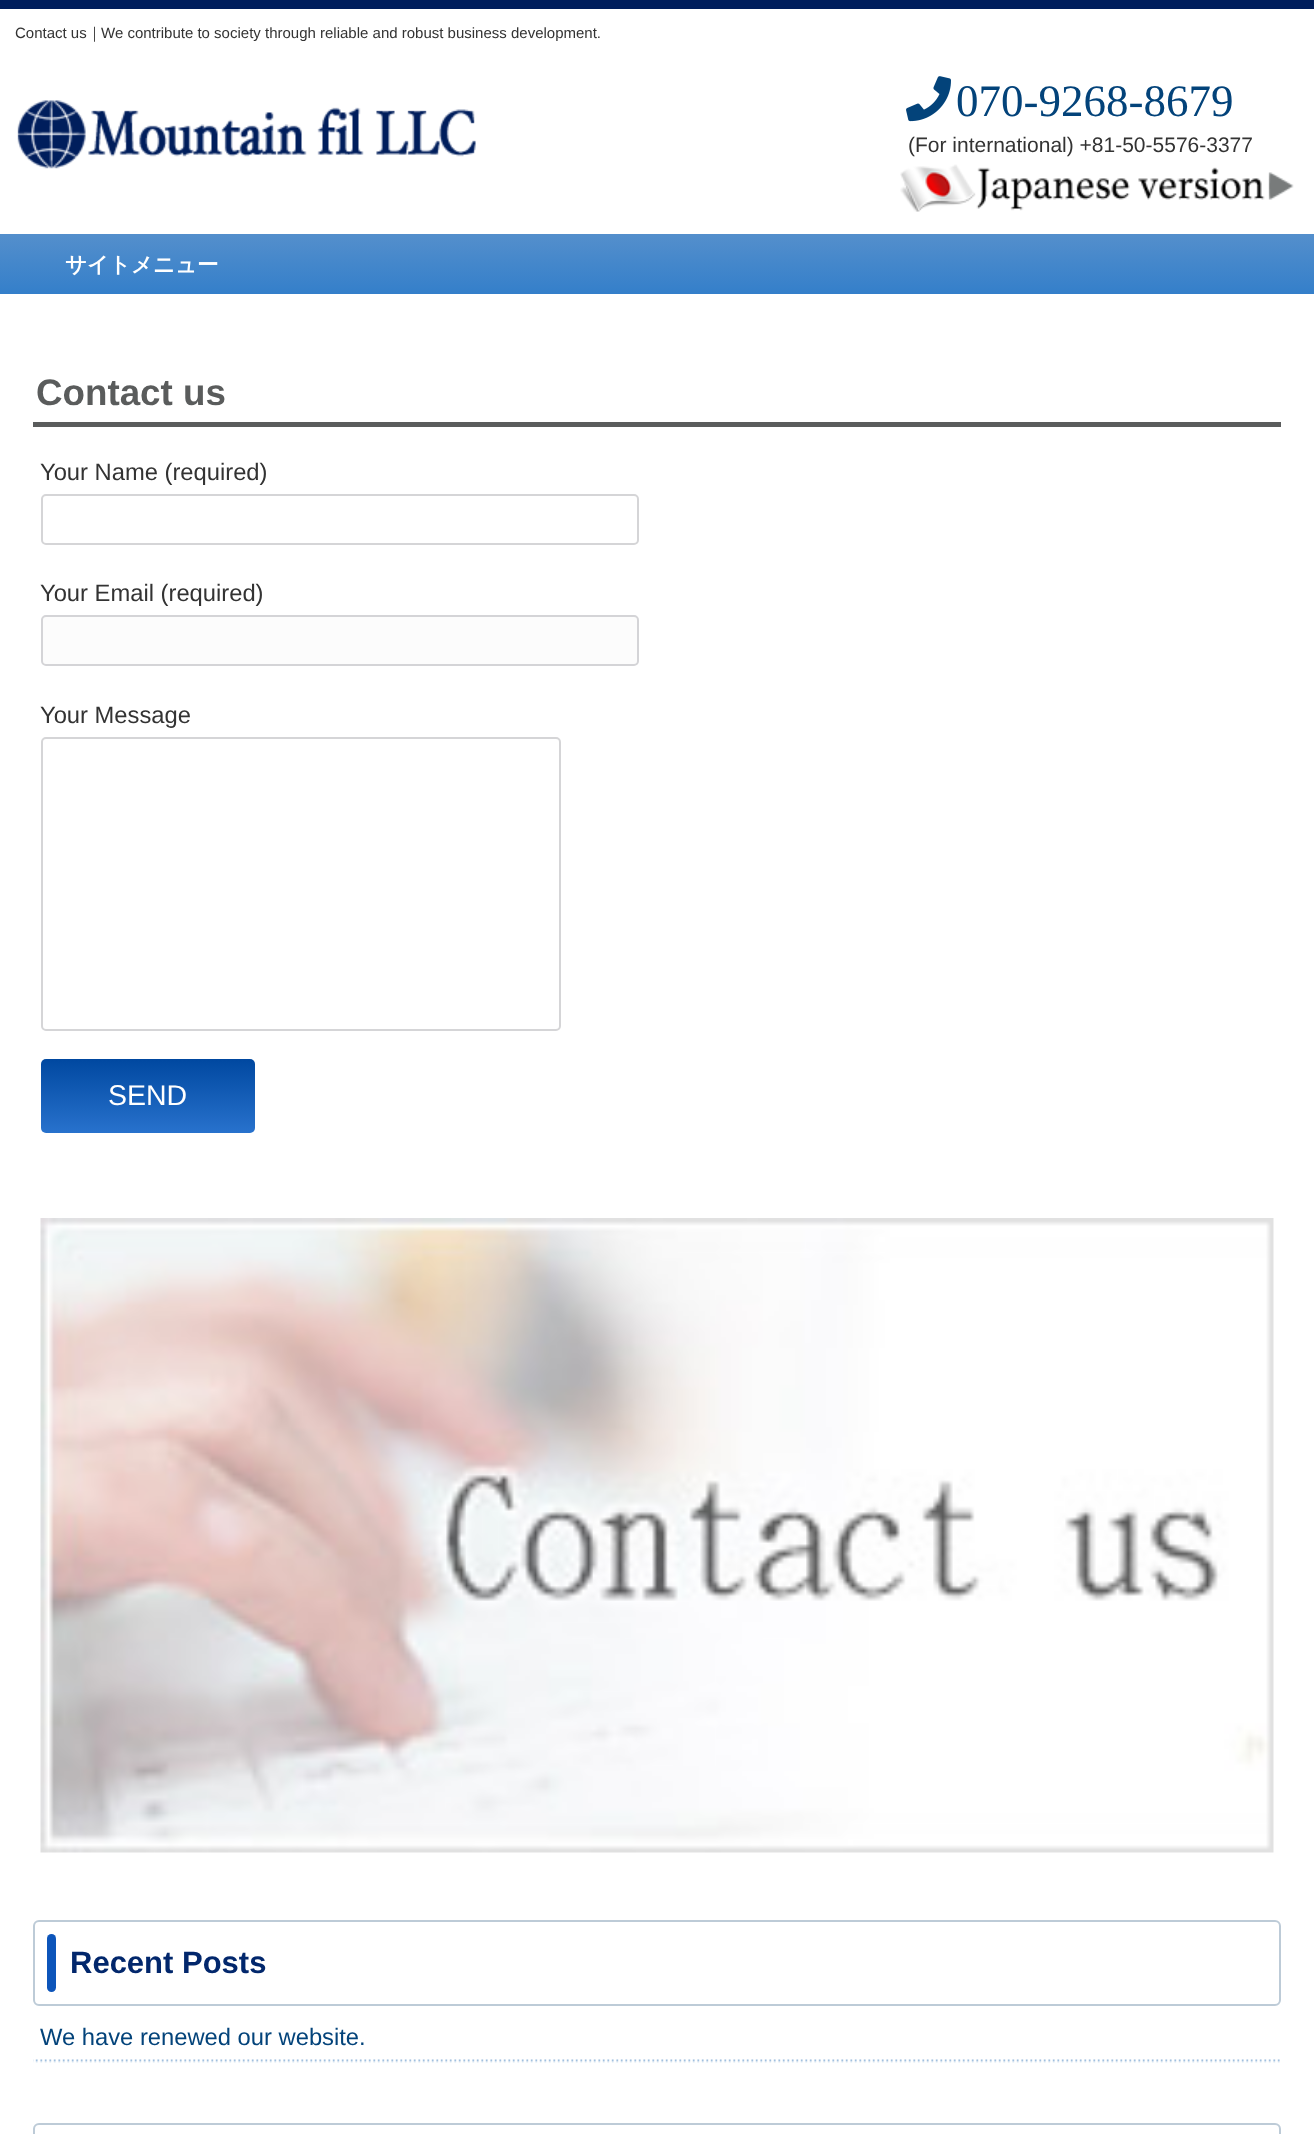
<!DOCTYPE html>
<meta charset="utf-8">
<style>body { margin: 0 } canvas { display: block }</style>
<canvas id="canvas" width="1314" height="2134"></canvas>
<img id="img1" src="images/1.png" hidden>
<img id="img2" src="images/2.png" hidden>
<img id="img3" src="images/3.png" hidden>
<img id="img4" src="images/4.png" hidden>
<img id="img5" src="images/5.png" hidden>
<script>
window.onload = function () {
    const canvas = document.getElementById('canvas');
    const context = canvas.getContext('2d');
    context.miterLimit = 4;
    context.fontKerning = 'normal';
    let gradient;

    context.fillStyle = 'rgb(255, 255, 255)';
    context.fillRect(0, 0, 1314, 2134);
    context.fillStyle = 'rgb(0, 30, 92)';
    context.fillRect(0, 0, 1314, 9);
    context.drawImage(document.getElementById('img1'), 17, 100, 459, 69);
    context.drawImage(document.getElementById('img2'), 906, 76, 45, 46);
    context.drawImage(document.getElementById('img3'), 900, 164, 394, 48);
    gradient = context.createLinearGradient(657, 234, 657, 294);
    gradient.addColorStop(0, 'rgb(84, 143, 204)');
    gradient.addColorStop(1, 'rgb(52, 127, 202)');
    context.fillStyle = gradient;
    context.fillRect(0, 234, 1314, 60);
    context.fillStyle = 'rgb(90, 92, 92)';
    context.fillRect(33, 422, 1248, 5);
    context.beginPath();
    context.roundRect(42, 495, 596, 49, 4);
    context.strokeStyle = 'rgb(213, 213, 215)';
    context.lineWidth = 2;
    context.stroke();
    context.fillStyle = 'rgb(252, 252, 252)';
    context.beginPath();
    context.roundRect(42, 616, 596, 49, 4);
    context.fill();
    context.strokeStyle = 'rgb(212, 212, 215)';
    context.stroke();
    context.beginPath();
    context.roundRect(42, 738, 518, 292, 4);
    context.strokeStyle = 'rgb(213, 213, 215)';
    context.stroke();
    gradient = context.createLinearGradient(148, 1059, 148, 1133);
    gradient.addColorStop(0, 'rgb(0, 72, 160)');
    gradient.addColorStop(1, 'rgb(40, 114, 205)');
    context.fillStyle = gradient;
    context.beginPath();
    context.roundRect(41, 1059, 214, 74, 5);
    context.fill();
    context.drawImage(document.getElementById('img4'), 40, 1218, 1234, 635);
    context.beginPath();
    context.roundRect(34, 1921, 1246, 84, 5);
    context.strokeStyle = 'rgb(189, 203, 215)';
    context.stroke();
    context.fillStyle = 'rgb(13, 85, 186)';
    context.beginPath();
    context.roundRect(47, 1934, 9, 58, 4.5);
    context.fill();
    context.drawImage(document.getElementById('img5'), 33, 2059, 1247, 4);
    context.beginPath();
    context.roundRect(34, 2124, 1246, 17, 5);
    context.stroke();
    context.font = '15px Liberation Sans';
    context.fillStyle = 'rgb(51, 51, 51)';
    context.fillText('Contact us', 15, 38);
    context.font = '500 15px WenQuanYi Zen Hei';
    context.fillText('｜', 87, 38);
    context.font = '15px Liberation Sans';
    context.fillText('We contribute to society through reliable and robust business development.', 101, 38);
    context.font = '45px Liberation Serif';
    context.fillStyle = 'rgb(3, 67, 122)';
    context.fillText('070-9268-8679', 956, 116);
    context.font = '21px Liberation Sans';
    context.fillStyle = 'rgb(51, 51, 51)';
    context.fillText('(For international) +81-50-5576-3377', 908, 152);
    context.font = 'bold 21.5px WenQuanYi Zen Hei';
    context.fillStyle = 'rgb(255, 255, 255)';
    context.fillText('サイトメニュー', 65, 272);
    context.font = 'bold 36.75px Liberation Sans';
    context.fillStyle = 'rgb(90, 92, 92)';
    context.fillText('Contact us', 36, 405);
    context.font = '23.75px Liberation Sans';
    context.fillStyle = 'rgb(51, 51, 51)';
    context.fillText('Your Name (required)', 40, 480);
    context.fillText('Your Email (required)', 40, 601);
    context.fillText('Your Message', 40, 723);
    context.font = '28.5px Liberation Sans';
    context.fillStyle = 'rgb(255, 255, 255)';
    context.fillText('SEND', 108, 1105);
    context.font = 'bold 31px Liberation Sans';
    context.fillStyle = 'rgb(2, 39, 108)';
    context.fillText('Recent Posts', 70, 1973);
    context.font = '23.75px Liberation Sans';
    context.fillStyle = 'rgb(3, 67, 122)';
    context.fillText('We have renewed our website.', 40, 2045);
};
</script>
